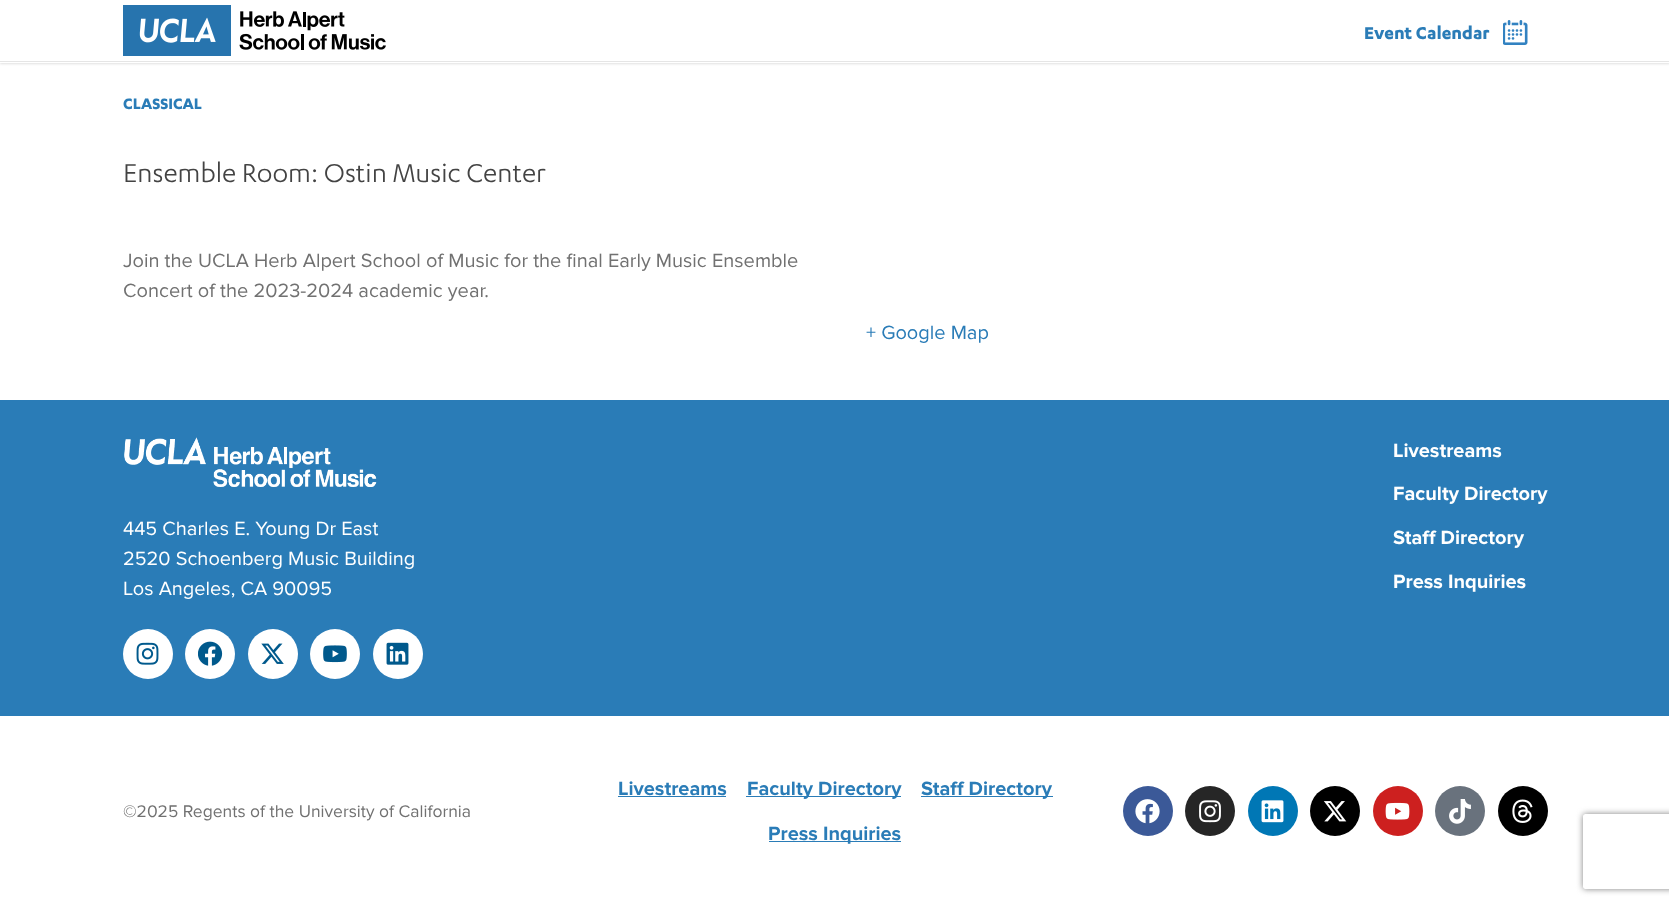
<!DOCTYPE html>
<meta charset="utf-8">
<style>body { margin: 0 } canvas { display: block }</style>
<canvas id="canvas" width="1669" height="906"></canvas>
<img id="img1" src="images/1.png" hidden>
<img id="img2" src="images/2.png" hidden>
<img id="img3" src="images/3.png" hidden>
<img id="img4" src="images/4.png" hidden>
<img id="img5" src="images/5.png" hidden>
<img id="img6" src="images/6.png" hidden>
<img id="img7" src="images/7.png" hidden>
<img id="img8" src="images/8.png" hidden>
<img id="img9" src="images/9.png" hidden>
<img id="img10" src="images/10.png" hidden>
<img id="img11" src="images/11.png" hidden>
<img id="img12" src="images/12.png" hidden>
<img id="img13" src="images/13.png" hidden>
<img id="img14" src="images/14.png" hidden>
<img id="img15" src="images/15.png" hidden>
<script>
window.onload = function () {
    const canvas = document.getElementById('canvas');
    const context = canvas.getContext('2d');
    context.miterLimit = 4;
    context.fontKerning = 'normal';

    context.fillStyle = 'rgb(255, 255, 255)';
    context.fillRect(0, 0, 1669, 906);
    context.fillStyle = 'rgba(0, 0, 0, 0.12)';
    context.filter = 'blur(1px)';
    context.beginPath();
    context.rect(0, 1, 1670, 63);
    context.fill();
    context.filter = 'none';
    context.fillStyle = 'rgb(255, 255, 255)';
    context.fillRect(0, 0, 1669, 63);
    context.drawImage(document.getElementById('img1'), 123, 5, 263, 51);
    context.drawImage(document.getElementById('img2'), 1503, 20, 25, 25);
    context.fillStyle = 'rgb(229, 229, 229)';
    context.fillRect(0, 61, 1669, 1);
    context.fillStyle = 'rgb(42, 124, 183)';
    context.fillRect(0, 400, 1669, 316);
    context.drawImage(document.getElementById('img3'), 124, 437, 253, 50);
    context.fillStyle = 'rgb(255, 255, 255)';
    context.beginPath();
    context.arc(148, 654, 25, 0, 2 * Math.PI);
    context.fill();
    context.drawImage(document.getElementById('img4'), 136, 642, 23, 23);
    context.beginPath();
    context.arc(210, 654, 25, 0, 2 * Math.PI);
    context.fill();
    context.drawImage(document.getElementById('img5'), 198, 641, 25, 25);
    context.beginPath();
    context.arc(273, 654, 25, 0, 2 * Math.PI);
    context.fill();
    context.drawImage(document.getElementById('img6'), 261, 643, 23, 21);
    context.beginPath();
    context.arc(335, 654, 25, 0, 2 * Math.PI);
    context.fill();
    context.drawImage(document.getElementById('img7'), 323, 645, 24, 18);
    context.beginPath();
    context.arc(398, 654, 25, 0, 2 * Math.PI);
    context.fill();
    context.drawImage(document.getElementById('img8'), 386, 642, 23, 23);
    context.fillStyle = 'rgb(42, 124, 183)';
    context.fillRect(618, 796, 108, 1);
    context.fillRect(746, 796, 155, 1);
    context.fillRect(921, 796, 132, 1);
    context.fillRect(769, 841, 132, 1);
    context.fillStyle = 'rgb(59, 89, 152)';
    context.beginPath();
    context.arc(1148, 811, 25, 0, 2 * Math.PI);
    context.fill();
    context.drawImage(document.getElementById('img9'), 1135, 799, 25, 25);
    context.fillStyle = 'rgb(38, 38, 38)';
    context.beginPath();
    context.arc(1210, 811, 25, 0, 2 * Math.PI);
    context.fill();
    context.drawImage(document.getElementById('img10'), 1199, 800, 22, 23);
    context.fillStyle = 'rgb(0, 119, 181)';
    context.beginPath();
    context.arc(1273, 811, 25, 0, 2 * Math.PI);
    context.fill();
    context.drawImage(document.getElementById('img11'), 1261, 800, 23, 23);
    context.fillStyle = 'rgb(0, 0, 0)';
    context.beginPath();
    context.arc(1335, 811, 25, 0, 2 * Math.PI);
    context.fill();
    context.drawImage(document.getElementById('img12'), 1323, 801, 24, 21);
    context.fillStyle = 'rgb(205, 32, 31)';
    context.beginPath();
    context.arc(1398, 811, 25, 0, 2 * Math.PI);
    context.fill();
    context.drawImage(document.getElementById('img13'), 1385, 802, 25, 18);
    context.fillStyle = 'rgb(105, 114, 125)';
    context.beginPath();
    context.arc(1460, 811, 25, 0, 2 * Math.PI);
    context.fill();
    context.drawImage(document.getElementById('img14'), 1449, 799, 22, 25);
    context.fillStyle = 'rgb(0, 0, 0)';
    context.beginPath();
    context.arc(1523, 811, 25, 0, 2 * Math.PI);
    context.fill();
    context.drawImage(document.getElementById('img15'), 1512, 799, 21, 24);
    context.save();
    context.beginPath();
    context.moveTo(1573, 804);
    context.lineTo(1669, 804);
    context.lineTo(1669, 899);
    context.lineTo(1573, 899);
    context.closePath();
    context.moveTo(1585.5, 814);
    context.lineTo(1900.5, 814);
    context.bezierCurveTo(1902, 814, 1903, 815, 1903, 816.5);
    context.lineTo(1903, 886.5);
    context.bezierCurveTo(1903, 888, 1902, 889, 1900.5, 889);
    context.lineTo(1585.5, 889);
    context.bezierCurveTo(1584, 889, 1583, 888, 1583, 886.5);
    context.lineTo(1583, 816.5);
    context.bezierCurveTo(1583, 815, 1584, 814, 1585.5, 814);
    context.closePath();
    context.clip('evenodd');
    context.fillStyle = 'rgb(128, 128, 128)';
    context.filter = 'blur(3px)';
    context.beginPath();
    context.roundRect(1583, 814, 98, 75, 2.5);
    context.fill();
    context.filter = 'none';
    context.restore();
    context.font = 'bold 20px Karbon';
    context.fillStyle = 'rgb(42, 124, 183)';
    context.fillText('Event Calendar', 1364, 39);
    context.font = 'bold 17.5px Karbon';
    context.fillText('CLASSICAL', 123, 109);
    context.font = '30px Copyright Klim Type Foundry';
    context.fillStyle = 'rgb(67, 67, 67)';
    context.fillText('Ensemble Room: Ostin Music Center', 123, 182);
    context.font = '20px Proxima Nova';
    context.fillStyle = 'rgb(113, 113, 113)';
    context.fillText('Join the UCLA Herb Alpert School of Music for the final Early Music Ensemble', 123, 267);
    context.fillText('Concert of the 2023-2024 academic year.', 123, 297);
    context.fillStyle = 'rgb(42, 124, 183)';
    context.fillText('+ Google Map', 866, 339);
    context.fillStyle = 'rgb(255, 255, 255)';
    context.fillText('445 Charles E. Young Dr East', 123, 535);
    context.fillText('2520 Schoenberg Music Building', 123, 565);
    context.fillText('Los Angeles, CA 90095', 123, 595);
    context.font = 'bold 20px Proxima Nova';
    context.fillText('Livestreams', 1393, 457);
    context.fillText('Faculty Directory', 1393, 500);
    context.fillText('Staff Directory', 1393, 544);
    context.fillText('Press Inquiries', 1393, 588);
    context.font = '17.5px Proxima Nova';
    context.fillStyle = 'rgb(113, 113, 113)';
    context.fillText('©2025 Regents of the University of California', 123, 817);
    context.font = 'bold 20px Proxima Nova';
    context.fillStyle = 'rgb(42, 124, 183)';
    context.fillText('Livestreams', 618, 795);
    context.fillText('Faculty Directory', 747, 795);
    context.fillText('Staff Directory', 921, 795);
    context.fillText('Press Inquiries', 768, 840);
};
</script>
